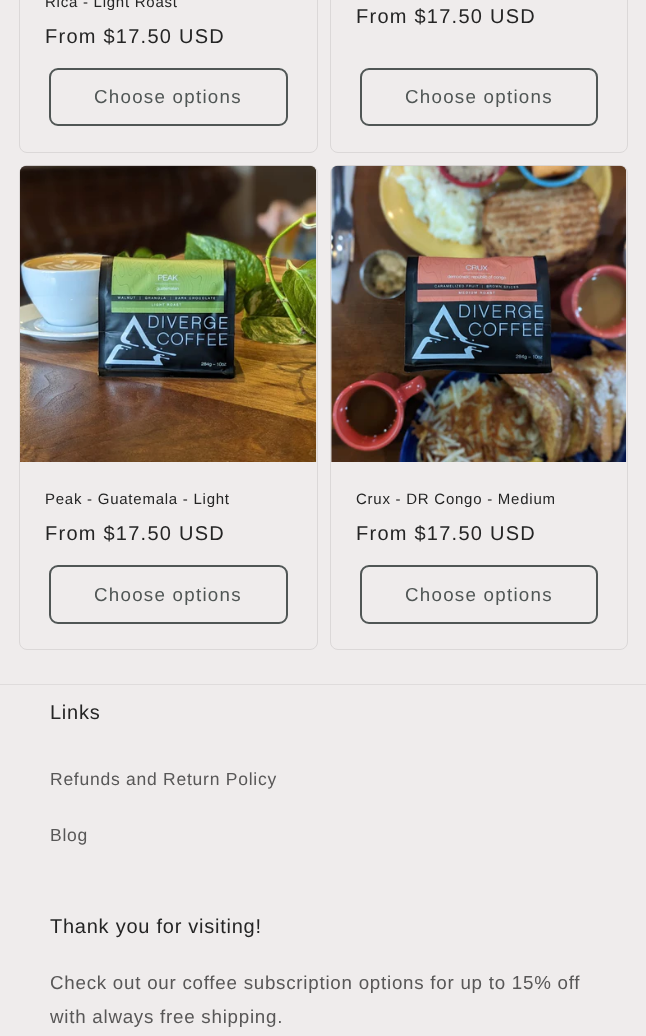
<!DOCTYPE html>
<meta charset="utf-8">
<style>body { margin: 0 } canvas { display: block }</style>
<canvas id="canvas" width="646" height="1036"></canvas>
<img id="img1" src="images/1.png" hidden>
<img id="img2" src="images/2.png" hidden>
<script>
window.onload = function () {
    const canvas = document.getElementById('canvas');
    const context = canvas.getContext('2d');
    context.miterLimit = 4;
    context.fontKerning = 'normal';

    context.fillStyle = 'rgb(239, 236, 236)';
    context.fillRect(0, 0, 646, 1036);
    context.beginPath();
    context.roundRect(19.5, -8.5, 298, 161, 7.5);
    context.strokeStyle = 'rgb(219, 216, 216)';
    context.stroke();
    context.beginPath();
    context.roundRect(50, 69, 237, 56, 8);
    context.strokeStyle = 'rgb(80, 86, 85)';
    context.lineWidth = 2;
    context.stroke();
    context.beginPath();
    context.roundRect(330.5, -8.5, 297, 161, 7.5);
    context.strokeStyle = 'rgb(219, 216, 216)';
    context.lineWidth = 1;
    context.stroke();
    context.beginPath();
    context.roundRect(361, 69, 236, 56, 8);
    context.strokeStyle = 'rgb(80, 86, 85)';
    context.lineWidth = 2;
    context.stroke();
    context.beginPath();
    context.roundRect(19.5, 165.5, 298, 484, 7.5);
    context.strokeStyle = 'rgb(219, 216, 216)';
    context.lineWidth = 1;
    context.stroke();
    context.drawImage(document.getElementById('img1'), 20, 165, 297, 297);
    context.beginPath();
    context.roundRect(50, 566, 237, 57, 8);
    context.strokeStyle = 'rgb(80, 86, 85)';
    context.lineWidth = 2;
    context.stroke();
    context.beginPath();
    context.roundRect(330.5, 165.5, 297, 484, 7.5);
    context.strokeStyle = 'rgb(219, 216, 216)';
    context.lineWidth = 1;
    context.stroke();
    context.drawImage(document.getElementById('img2'), 331, 165, 296, 297);
    context.beginPath();
    context.roundRect(361, 566, 236, 57, 8);
    context.strokeStyle = 'rgb(80, 86, 85)';
    context.lineWidth = 2;
    context.stroke();
    context.fillStyle = 'rgb(223, 220, 220)';
    context.fillRect(0, 684, 646, 1);
    context.letterSpacing = '0.75px';
    context.font = '15px Arimo';
    context.fillStyle = 'rgb(37, 37, 37)';
    context.fillText('Rica - Light Roast', 45, 7);
    context.letterSpacing = '1.25px';
    context.font = '20px Arimo';
    context.fillText('From $17.50 USD', 45, 43);
    context.font = '18.75px Arimo';
    context.fillStyle = 'rgb(80, 86, 85)';
    context.fillText('Choose options', 94, 103);
    context.font = '20px Arimo';
    context.fillStyle = 'rgb(37, 37, 37)';
    context.fillText('From $17.50 USD', 356, 23);
    context.font = '18.75px Arimo';
    context.fillStyle = 'rgb(80, 86, 85)';
    context.fillText('Choose options', 405, 103);
    context.letterSpacing = '0.75px';
    context.font = '15px Arimo';
    context.fillStyle = 'rgb(37, 37, 37)';
    context.fillText('Peak - Guatemala - Light', 45, 504);
    context.letterSpacing = '1.25px';
    context.font = '20px Arimo';
    context.fillText('From $17.50 USD', 45, 540);
    context.font = '18.75px Arimo';
    context.fillStyle = 'rgb(80, 86, 85)';
    context.fillText('Choose options', 94, 601);
    context.letterSpacing = '0.75px';
    context.font = '15px Arimo';
    context.fillStyle = 'rgb(37, 37, 37)';
    context.fillText('Crux - DR Congo - Medium', 356, 504);
    context.letterSpacing = '1.25px';
    context.font = '20px Arimo';
    context.fillText('From $17.50 USD', 356, 540);
    context.font = '18.75px Arimo';
    context.fillStyle = 'rgb(80, 86, 85)';
    context.fillText('Choose options', 405, 601);
    context.letterSpacing = '0.75px';
    context.font = '20px Arimo';
    context.fillStyle = 'rgb(37, 37, 37)';
    context.fillText('Links', 50, 719);
    context.font = '17.5px Arimo';
    context.fillStyle = 'rgb(88, 87, 87)';
    context.fillText('Refunds and Return Policy', 50, 785);
    context.fillText('Blog', 50, 841);
    context.font = '20px Arimo';
    context.fillStyle = 'rgb(37, 37, 37)';
    context.fillText('Thank you for visiting!', 50, 933);
    context.font = '18.75px Arimo';
    context.fillStyle = 'rgb(88, 87, 87)';
    context.fillText('Check out our coffee subscription options for up to 15% off', 50, 989);
    context.fillText('with always free shipping.', 50, 1023);
};
</script>
